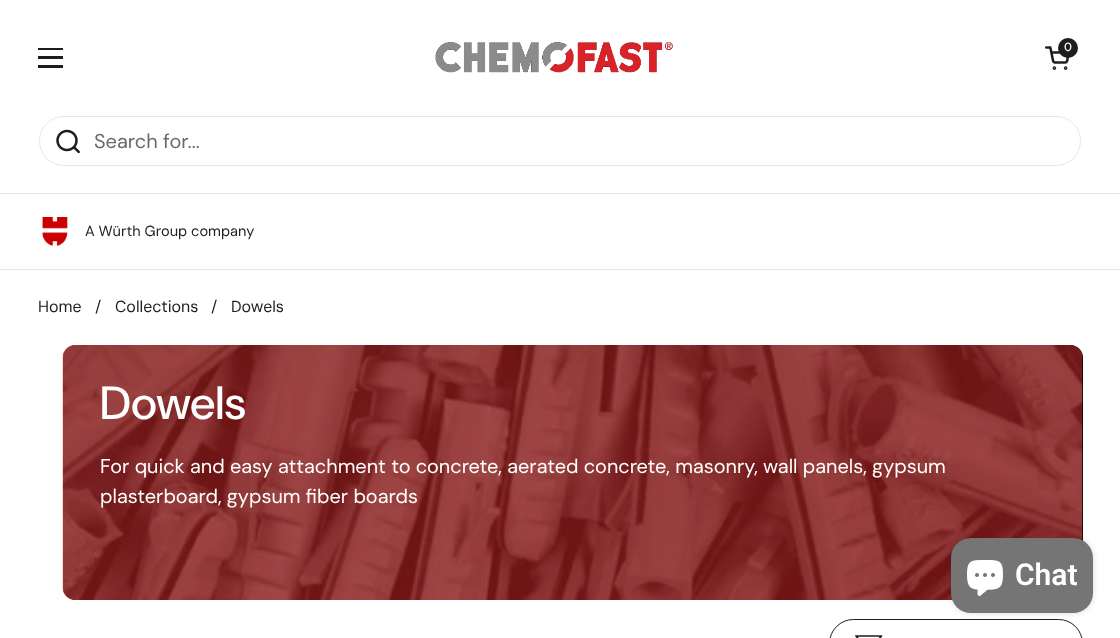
<!DOCTYPE html>
<meta charset="utf-8">
<style>body { margin: 0 } canvas { display: block }</style>
<canvas id="canvas" width="1120" height="638"></canvas>
<img id="img1" src="images/1.png" hidden>
<img id="img2" src="images/2.png" hidden>
<img id="img3" src="images/3.png" hidden>
<img id="img4" src="images/4.png" hidden>
<img id="img5" src="images/5.png" hidden>
<img id="img6" src="images/6.png" hidden>
<script>
window.onload = function () {
    const canvas = document.getElementById('canvas');
    const context = canvas.getContext('2d');
    context.miterLimit = 4;
    context.fontKerning = 'normal';

    context.fillStyle = 'rgb(255, 255, 255)';
    context.fillRect(0, 0, 1120, 638);
    context.drawImage(document.getElementById('img1'), 435, 42, 238, 31);
    context.drawImage(document.getElementById('img2'), 1045, 46, 25, 24);
    context.fillStyle = 'rgb(29, 29, 29)';
    context.beginPath();
    context.arc(1068, 48, 10, 0, 2 * Math.PI);
    context.fill();
    context.fillRect(38, 48, 25, 2);
    context.fillRect(38, 56, 25, 3);
    context.fillRect(38, 65, 25, 3);
    context.fillStyle = 'rgb(232, 232, 232)';
    context.fillRect(0, 193, 1120, 1);
    context.beginPath();
    context.roundRect(39.5, 116.5, 1041, 49, 24.5);
    context.strokeStyle = 'rgb(232, 232, 232)';
    context.stroke();
    context.drawImage(document.getElementById('img3'), 56, 129, 24, 25);
    context.fillRect(0, 269, 1120, 1);
    context.drawImage(document.getElementById('img4'), 42, 217, 26, 29);
    context.fillStyle = 'rgb(0, 0, 0)';
    context.beginPath();
    context.roundRect(63, 345, 1020, 255, 13);
    context.fill();
    context.drawImage(document.getElementById('img5'), 62, 345, 1021, 255);
    context.fillStyle = 'rgba(0, 0, 0, 0.36)';
    context.beginPath();
    context.roundRect(63, 345, 1020, 255, 13);
    context.fill();
    context.beginPath();
    context.roundRect(829.5, 619.5, 253, 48, 28);
    context.strokeStyle = 'rgb(29, 29, 29)';
    context.stroke();
    context.beginPath();
    context.moveTo(856, 636);
    context.lineTo(881.5, 636);
    context.lineTo(871.5, 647);
    context.lineTo(871.5, 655.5);
    context.lineTo(866, 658);
    context.lineTo(866, 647);
    context.closePath();
    context.lineWidth = 1.7;
    context.lineCap = 'round';
    context.lineJoin = 'round';
    context.stroke();
    context.fillStyle = 'rgba(0, 0, 0, 0.15)';
    context.filter = 'blur(3px)';
    context.beginPath();
    context.roundRect(951, 538, 142, 75, 20);
    context.fill();
    context.filter = 'none';
    context.fillStyle = 'rgb(117, 117, 117)';
    context.beginPath();
    context.roundRect(951, 538, 142, 75, 20);
    context.fill();
    context.drawImage(document.getElementById('img6'), 967, 560, 36, 36);
    context.font = '500 12px "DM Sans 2"';
    context.fillStyle = 'rgb(255, 255, 255)';
    context.fillText('0', 1064, 51);
    context.font = '20px "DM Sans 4"';
    context.fillStyle = 'rgb(106, 106, 106)';
    context.fillText('Search for...', 94, 148);
    context.font = '14.6px "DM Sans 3"';
    context.fillStyle = 'rgb(29, 29, 29)';
    context.fillText('A Würth Group company', 85, 236);
    context.font = '16px DM Sans';
    context.fillText('Home', 38, 312);
    context.fillText('/', 95, 312);
    context.fillText('Collections', 115, 312);
    context.fillText('/', 211, 312);
    context.fillText('Dowels', 231, 312);
    context.font = '500 46.5px DM Sans';
    context.fillStyle = 'rgb(255, 255, 255)';
    context.fillText('Dowels', 100, 419);
    context.font = '19.9px "DM Sans 2"';
    context.fillText('For quick and easy attachment to concrete, aerated concrete, masonry, wall panels, gypsum', 100, 473);
    context.fillText('plasterboard, gypsum fiber boards', 100, 503);
    context.font = '600 30px Roboto';
    context.fillText('Chat', 1015, 585);
};
</script>
